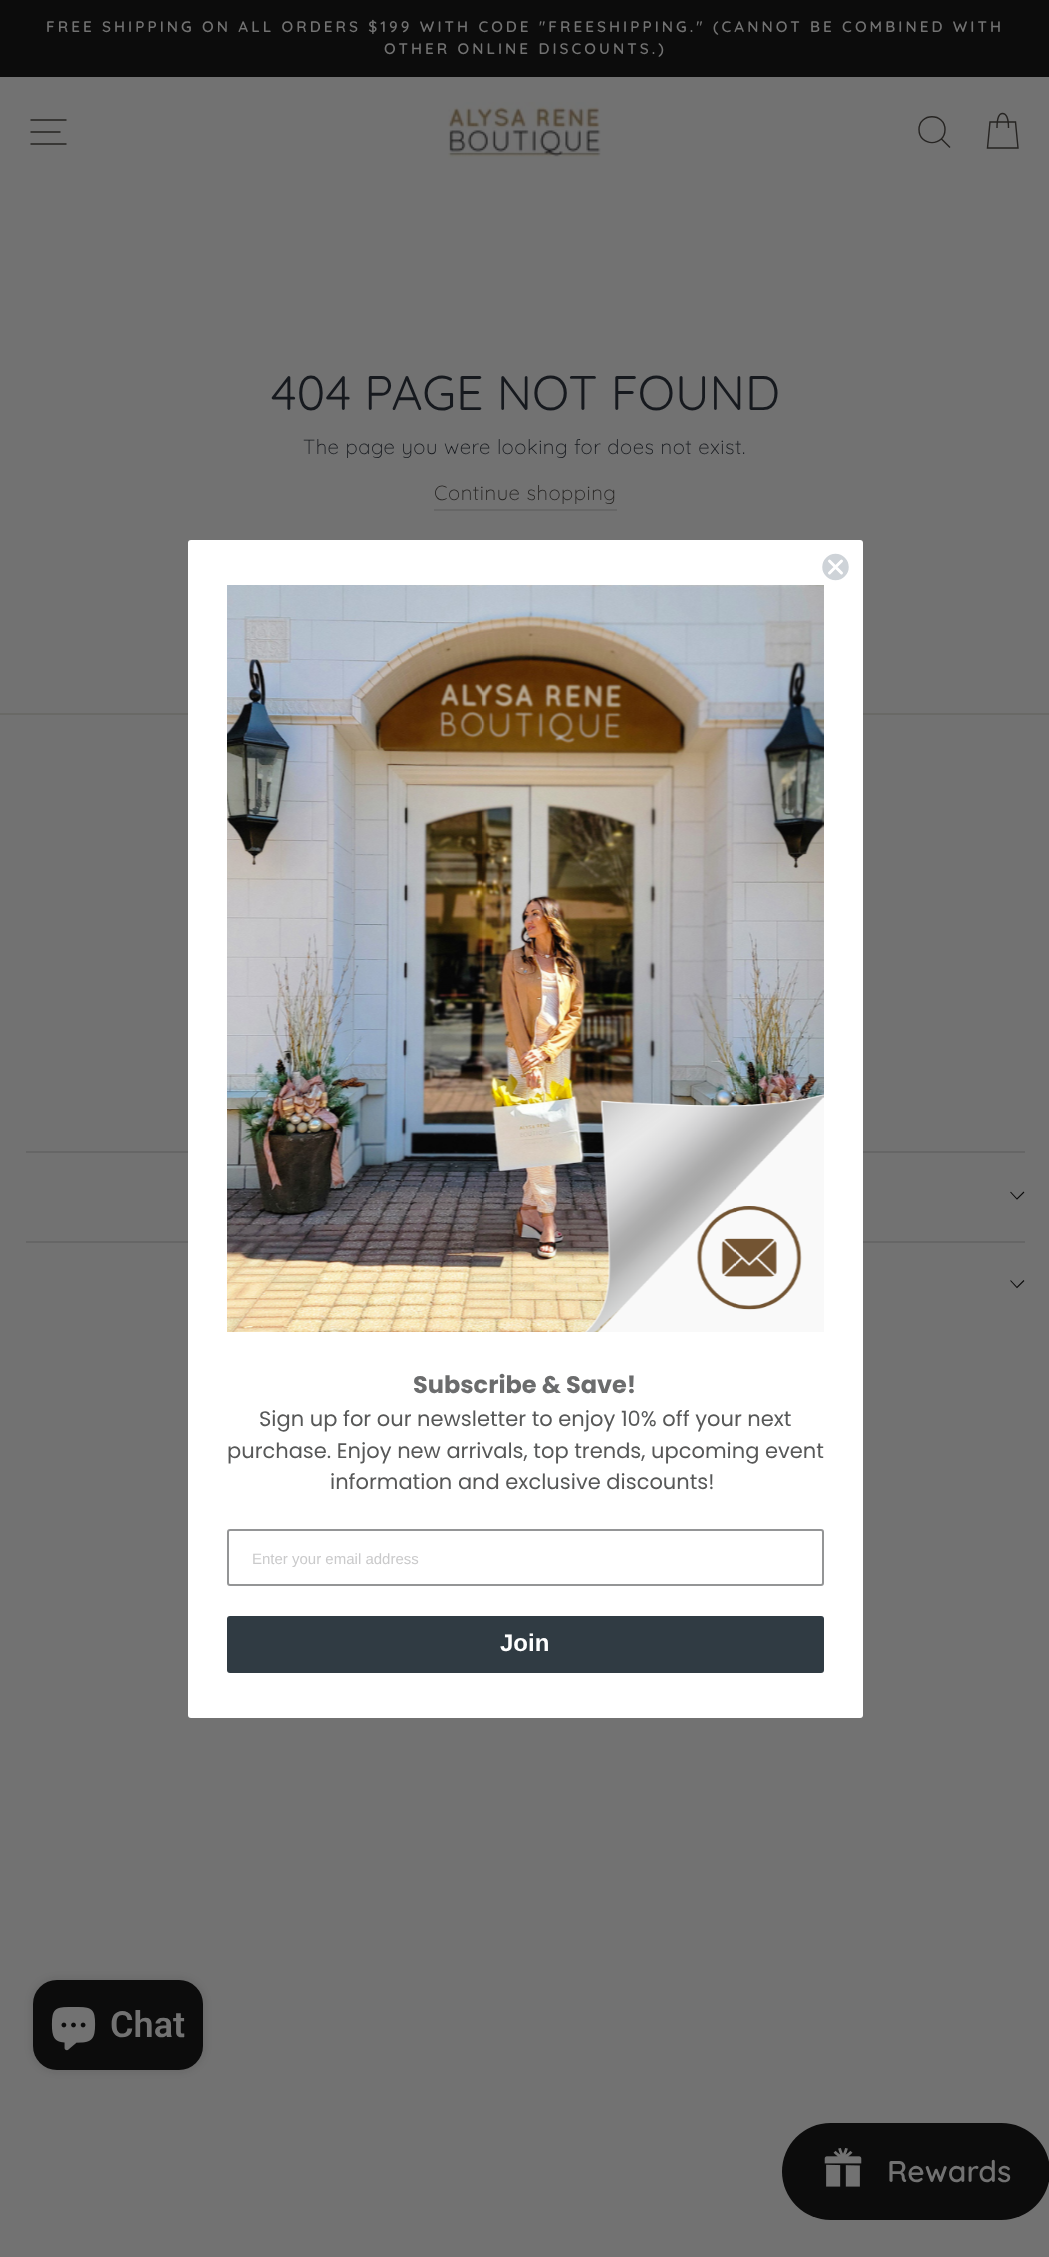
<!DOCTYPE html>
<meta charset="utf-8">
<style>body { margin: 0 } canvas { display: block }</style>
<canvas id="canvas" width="1049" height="2257"></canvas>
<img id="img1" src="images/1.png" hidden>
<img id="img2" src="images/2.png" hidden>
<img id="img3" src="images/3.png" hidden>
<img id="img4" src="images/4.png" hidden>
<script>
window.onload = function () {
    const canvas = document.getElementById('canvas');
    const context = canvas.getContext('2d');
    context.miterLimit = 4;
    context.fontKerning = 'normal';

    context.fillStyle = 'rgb(114, 114, 114)';
    context.fillRect(0, 0, 1049, 2257);
    context.fillStyle = 'rgb(12, 12, 12)';
    context.fillRect(0, 0, 1049, 77);
    context.beginPath();
    context.moveTo(30.5, 120);
    context.lineTo(66.5, 120);
    context.moveTo(30.5, 132);
    context.lineTo(60.5, 132);
    context.moveTo(30.5, 144);
    context.lineTo(66.5, 144);
    context.strokeStyle = 'rgb(38, 36, 34)';
    context.lineWidth = 1.4;
    context.stroke();
    context.drawImage(document.getElementById('img1'), 448, 102, 153, 56);
    context.beginPath();
    context.moveTo(945, 129.5);
    context.bezierCurveTo(945, 147, 919, 147, 919, 129.5);
    context.bezierCurveTo(919, 112.5, 945, 112.5, 945, 129.5);
    context.closePath();
    context.moveTo(950, 147.5);
    context.lineTo(941.5, 139);
    context.stroke();
    context.beginPath();
    context.moveTo(997, 128);
    context.bezierCurveTo(997, 116.5, 999.5, 113.5, 1002.5, 113.5);
    context.bezierCurveTo(1006, 113.5, 1008.5, 116.5, 1008.5, 128);
    context.moveTo(990, 122);
    context.lineTo(1015.5, 122);
    context.lineTo(1018, 148);
    context.lineTo(987.5, 148);
    context.closePath();
    context.stroke();
    context.fillStyle = 'rgb(102, 102, 102)';
    context.fillRect(434, 509, 183, 2);
    context.fillStyle = 'rgb(105, 105, 102)';
    context.fillRect(0, 713, 1049, 2);
    context.fillStyle = 'rgb(102, 102, 102)';
    context.fillRect(26, 1151, 999, 2);
    context.beginPath();
    context.moveTo(1010.5, 1192);
    context.lineTo(1017, 1199);
    context.lineTo(1024, 1192);
    context.strokeStyle = 'rgb(12, 12, 12)';
    context.lineWidth = 1.1;
    context.stroke();
    context.fillRect(26, 1241, 999, 2);
    context.beginPath();
    context.moveTo(1010.5, 1280.5);
    context.lineTo(1017, 1287.5);
    context.lineTo(1024, 1280.5);
    context.stroke();
    context.fillStyle = 'rgb(255, 255, 255)';
    context.beginPath();
    context.roundRect(188, 540, 675, 1178, 3);
    context.fill();
    context.fillStyle = 'rgb(206, 211, 216)';
    context.beginPath();
    context.arc(835.5, 567, 14, 0, 2 * Math.PI);
    context.fill();
    context.save();
    context.beginPath();
    context.rect(821, 552, 30, 30);
    context.clip();
    context.beginPath();
    context.arc(835.5, 567, 14, 0, 2 * Math.PI);
    context.strokeStyle = 'rgb(255, 255, 255)';
    context.lineWidth = 1.5;
    context.stroke();
    context.restore();
    context.beginPath();
    context.moveTo(829.5, 561);
    context.lineTo(841.5, 573);
    context.moveTo(829.5, 573);
    context.lineTo(841.5, 561);
    context.closePath();
    context.strokeStyle = 'rgb(255, 255, 255)';
    context.lineWidth = 3;
    context.lineCap = 'round';
    context.lineJoin = 'round';
    context.stroke();
    context.drawImage(document.getElementById('img2'), 227, 585, 597, 747);
    context.beginPath();
    context.roundRect(228, 1530, 595, 55, 2);
    context.strokeStyle = 'rgb(148, 149, 150)';
    context.lineWidth = 2;
    context.lineJoin = 'miter';
    context.stroke();
    context.fillStyle = 'rgb(48, 59, 67)';
    context.beginPath();
    context.roundRect(227, 1616, 597, 57, 3);
    context.fill();
    context.fillStyle = 'rgba(12, 12, 12, 0.15)';
    context.filter = 'blur(4px)';
    context.beginPath();
    context.roundRect(33, 1980, 170, 90, 24);
    context.fill();
    context.filter = 'none';
    context.fillStyle = 'rgb(12, 12, 12)';
    context.beginPath();
    context.roundRect(33, 1980, 170, 90, 24);
    context.fill();
    context.drawImage(document.getElementById('img3'), 51, 2007, 45, 44);
    context.beginPath();
    context.roundRect(782, 2123, 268, 97, 48.5);
    context.fill();
    context.drawImage(document.getElementById('img4'), 824, 2148, 38, 39);
    context.letterSpacing = '3.05px';
    context.font = '600 15.3px Quicksand';
    context.fillStyle = 'rgb(114, 114, 114)';
    context.fillText('FREE SHIPPING ON ALL ORDERS $199 WITH CODE "FREESHIPPING." (CANNOT BE COMBINED WITH', 46, 32);
    context.fillText('OTHER ONLINE DISCOUNTS.)', 384, 54);
    context.letterSpacing = '0px';
    context.font = '48.5px Quicksand';
    context.fillStyle = 'rgb(22, 25, 30)';
    context.fillText('404 PAGE NOT FOUND', 271, 410);
    context.letterSpacing = '0.5px';
    context.font = '300 20.4px Quicksand';
    context.fillText('The page you were looking for does not exist.', 303, 454);
    context.fillStyle = 'rgb(38, 36, 34)';
    context.fillText('Continue shopping', 434, 500);
    context.letterSpacing = '0px';
    context.font = 'bold 24px Poppins';
    context.fillStyle = 'rgb(107, 108, 109)';
    context.fillText('Subscribe & Save!', 413, 1393);
    context.font = '21px Poppins';
    context.fillStyle = 'rgb(87, 88, 88)';
    context.fillText('Sign up for our newsletter to enjoy 10% off your next', 259, 1426);
    context.fillText('purchase. Enjoy new arrivals, top trends, upcoming event', 227, 1458);
    context.fillText('information and exclusive discounts!', 330, 1489);
    context.font = '15px Liberation Sans';
    context.fillStyle = 'rgb(202, 202, 203)';
    context.fillText('Enter your email address', 252, 1564);
    context.font = 'bold 24px Liberation Sans';
    context.fillStyle = 'rgb(255, 255, 255)';
    context.fillText('Join', 500, 1651);
    context.font = '600 36px Roboto';
    context.fillStyle = 'rgb(114, 114, 114)';
    context.fillText('Chat', 110, 2037);
    context.font = '600 30px Quicksand';
    context.fillText('Rewards', 887, 2182);
};
</script>
